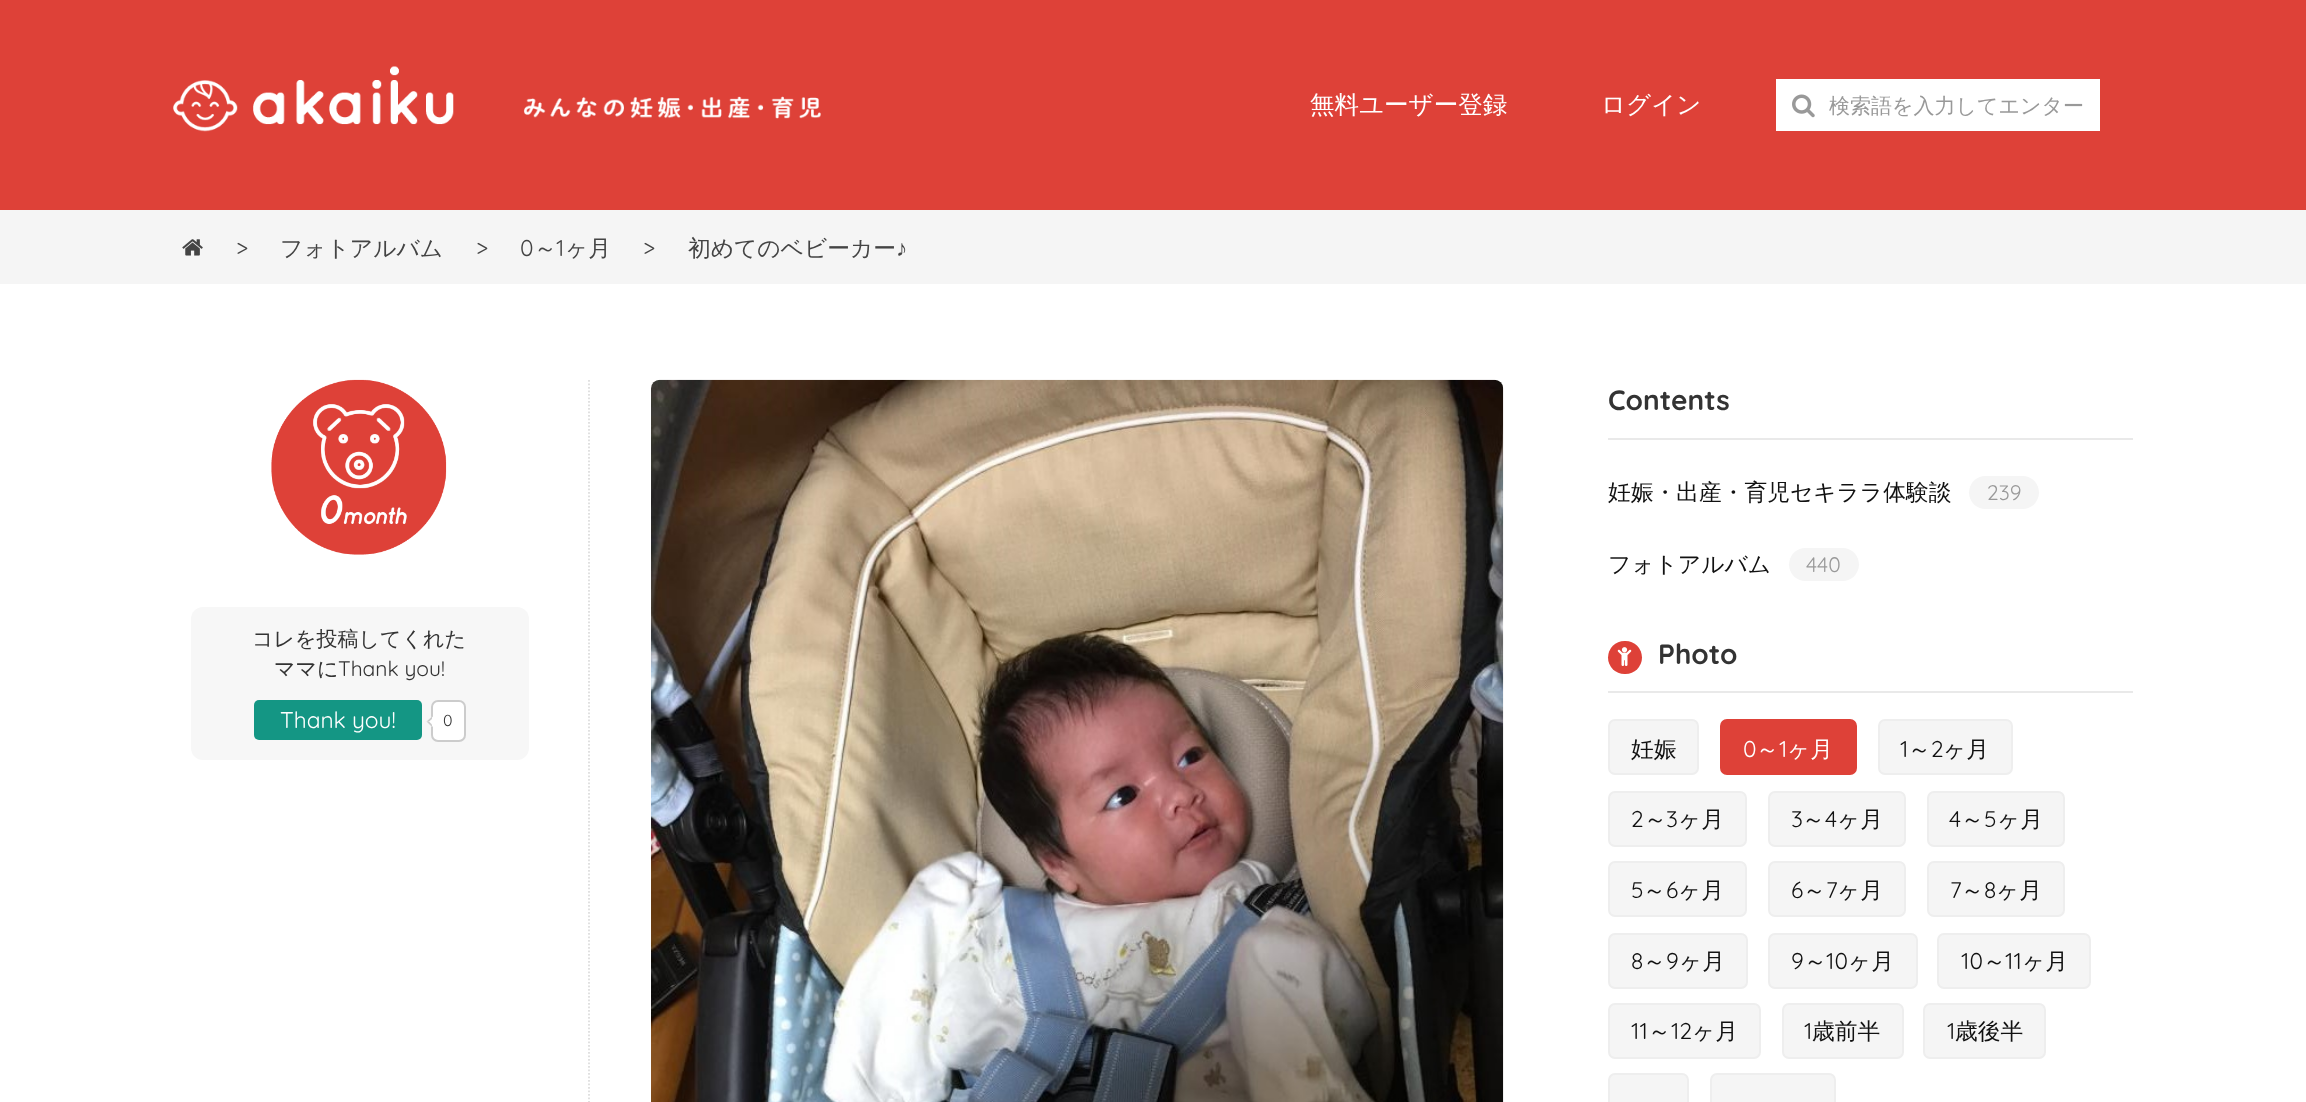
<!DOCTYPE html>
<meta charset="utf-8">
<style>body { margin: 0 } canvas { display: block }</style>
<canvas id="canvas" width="2306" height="1102"></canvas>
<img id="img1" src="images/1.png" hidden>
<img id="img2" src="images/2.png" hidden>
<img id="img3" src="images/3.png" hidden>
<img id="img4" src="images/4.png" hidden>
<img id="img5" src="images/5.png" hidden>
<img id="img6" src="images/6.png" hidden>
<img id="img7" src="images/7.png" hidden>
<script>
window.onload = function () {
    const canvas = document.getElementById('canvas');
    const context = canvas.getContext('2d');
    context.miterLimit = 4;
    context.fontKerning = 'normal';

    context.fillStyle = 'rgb(255, 255, 255)';
    context.fillRect(0, 0, 2306, 1102);
    context.fillStyle = 'rgb(222, 65, 56)';
    context.fillRect(0, 0, 2306, 210);
    context.drawImage(document.getElementById('img1'), 173, 66, 281, 66);
    context.drawImage(document.getElementById('img2'), 523, 96, 298, 23);
    context.fillStyle = 'rgb(255, 255, 255)';
    context.fillRect(1776, 79, 324, 52);
    context.drawImage(document.getElementById('img3'), 1792, 94, 23, 24);
    context.fillStyle = 'rgb(245, 245, 245)';
    context.fillRect(0, 210, 2306, 74);
    context.drawImage(document.getElementById('img4'), 182, 239, 21, 17);
    context.drawImage(document.getElementById('img5'), 271, 379, 176, 176);
    context.fillStyle = 'rgb(247, 247, 247)';
    context.beginPath();
    context.roundRect(191, 607, 338, 153, 12);
    context.fill();
    context.fillStyle = 'rgb(20, 150, 132)';
    context.beginPath();
    context.roundRect(254, 700, 168, 40, 5);
    context.fill();
    context.fillStyle = 'rgb(255, 255, 255)';
    context.beginPath();
    context.roundRect(432, 701, 33, 40, 6);
    context.fill();
    context.strokeStyle = 'rgb(204, 204, 204)';
    context.lineWidth = 2;
    context.stroke();
    context.beginPath();
    context.moveTo(432, 716.5);
    context.lineTo(437, 721.5);
    context.lineTo(432, 727);
    context.lineTo(426.5, 721.5);
    context.closePath();
    context.fill();
    context.fillStyle = 'rgb(204, 204, 204)';
    context.beginPath();
    context.moveTo(432, 727);
    context.lineTo(426.5, 721.5);
    context.lineTo(429, 721.5);
    context.lineTo(432, 724.5);
    context.closePath();
    context.fill();
    context.beginPath();
    context.moveTo(426.5, 721.5);
    context.lineTo(432, 716.5);
    context.lineTo(432, 719);
    context.lineTo(429, 721.5);
    context.closePath();
    context.fill();
    context.beginPath();
    context.moveTo(589, 380);
    context.lineTo(589, 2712.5);
    context.strokeStyle = 'rgb(221, 221, 221)';
    context.lineWidth = 1.8;
    context.setLineDash([1.75, 1.75]);
    context.stroke();
    context.drawImage(document.getElementById('img6'), 651, 379, 853, 723);
    context.fillStyle = 'rgb(233, 233, 233)';
    context.fillRect(1608, 438, 525, 2);
    context.fillStyle = 'rgb(245, 245, 245)';
    context.beginPath();
    context.roundRect(1969, 476, 70, 33, 16.5);
    context.fill();
    context.beginPath();
    context.roundRect(1789, 548, 70, 33, 16.5);
    context.fill();
    context.fillStyle = 'rgb(233, 233, 233)';
    context.fillRect(1608, 691, 525, 2);
    context.fillStyle = 'rgb(222, 65, 56)';
    context.beginPath();
    context.roundRect(1608, 641, 34, 33, 16.5);
    context.fill();
    context.drawImage(document.getElementById('img7'), 1617, 647, 15, 19);
    context.fillStyle = 'rgb(245, 245, 245)';
    context.beginPath();
    context.roundRect(1609, 720, 89, 54, 6);
    context.fill();
    context.strokeStyle = 'rgb(238, 238, 238)';
    context.lineWidth = 2;
    context.setLineDash([]);
    context.stroke();
    context.fillStyle = 'rgb(222, 65, 56)';
    context.beginPath();
    context.roundRect(1721, 720, 135, 54, 6);
    context.fill();
    context.strokeStyle = 'rgb(222, 65, 56)';
    context.stroke();
    context.fillStyle = 'rgb(245, 245, 245)';
    context.beginPath();
    context.roundRect(1879, 720, 133, 54, 6);
    context.fill();
    context.strokeStyle = 'rgb(238, 238, 238)';
    context.stroke();
    context.beginPath();
    context.roundRect(1609, 792, 137, 54, 6);
    context.fill();
    context.stroke();
    context.beginPath();
    context.roundRect(1769, 792, 136, 54, 6);
    context.fill();
    context.stroke();
    context.beginPath();
    context.roundRect(1928, 792, 136, 54, 6);
    context.fill();
    context.stroke();
    context.beginPath();
    context.roundRect(1609, 862, 137, 54, 6);
    context.fill();
    context.stroke();
    context.beginPath();
    context.roundRect(1769, 862, 136, 54, 6);
    context.fill();
    context.stroke();
    context.beginPath();
    context.roundRect(1928, 862, 136, 54, 6);
    context.fill();
    context.stroke();
    context.beginPath();
    context.roundRect(1609, 934, 138, 54, 6);
    context.fill();
    context.stroke();
    context.beginPath();
    context.roundRect(1769, 934, 148, 54, 6);
    context.fill();
    context.stroke();
    context.beginPath();
    context.roundRect(1938, 934, 152, 54, 6);
    context.fill();
    context.stroke();
    context.beginPath();
    context.roundRect(1609, 1004, 151, 54, 6);
    context.fill();
    context.stroke();
    context.beginPath();
    context.roundRect(1783, 1004, 120, 54, 6);
    context.fill();
    context.stroke();
    context.beginPath();
    context.roundRect(1924, 1004, 121, 54, 6);
    context.fill();
    context.stroke();
    context.beginPath();
    context.roundRect(1609, 1074, 79, 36, 6);
    context.fill();
    context.stroke();
    context.beginPath();
    context.roundRect(1711, 1074, 124, 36, 6);
    context.fill();
    context.stroke();
    context.font = '500 24.5px WenQuanYi Zen Hei';
    context.fillStyle = 'rgb(255, 255, 255)';
    context.fillText('無料ユーザー登録', 1310, 113);
    context.fillText('ログイン', 1601, 113);
    context.font = '500 21px WenQuanYi Zen Hei';
    context.fillStyle = 'rgb(153, 153, 153)';
    context.fillText('検索語を入力してエンター', 1829, 113);
    context.font = '22.75px Quicksand';
    context.fillStyle = 'rgb(68, 68, 68)';
    context.fillText('>', 236, 256);
    context.font = '500 22.75px WenQuanYi Zen Hei';
    context.fillText('フォトアルバム', 280, 256);
    context.font = '22.75px Quicksand';
    context.fillText('>', 476, 256);
    context.fillText('0', 520, 256);
    context.font = '500 22.75px WenQuanYi Zen Hei';
    context.fillText('～', 534, 256);
    context.font = '22.75px Quicksand';
    context.fillText('1', 556, 256);
    context.font = '500 22.75px WenQuanYi Zen Hei';
    context.fillText('ヶ月', 565, 256);
    context.font = '22.75px Quicksand';
    context.fillText('>', 643, 256);
    context.font = '500 22.75px WenQuanYi Zen Hei';
    context.fillText('初めてのベビーカー', 688, 256);
    context.font = '22.75px Liberation Sans';
    context.fillText('♪', 896, 256);
    context.font = '500 21px WenQuanYi Zen Hei';
    context.fillStyle = 'rgb(51, 51, 51)';
    context.fillText('コレを投稿してくれた', 252, 646);
    context.fillText('ママに', 274, 676);
    context.font = '21px Quicksand';
    context.fillText('Thank you!', 338, 676);
    context.font = '22.75px Quicksand';
    context.fillStyle = 'rgb(255, 255, 255)';
    context.fillText('Thank you!', 280, 728);
    context.font = '16px Quicksand';
    context.fillStyle = 'rgb(51, 51, 51)';
    context.fillText('0', 443, 726);
    context.font = 'bold 28px Quicksand';
    context.fillText('Contents', 1608, 410);
    context.font = '500 22.75px WenQuanYi Zen Hei';
    context.fillStyle = 'rgb(17, 17, 17)';
    context.fillText('妊娠・出産・育児セキララ体験談', 1608, 500);
    context.font = '21px Quicksand';
    context.fillStyle = 'rgb(153, 153, 153)';
    context.fillText('239', 1987, 500);
    context.font = '500 22.75px WenQuanYi Zen Hei';
    context.fillStyle = 'rgb(17, 17, 17)';
    context.fillText('フォトアルバム', 1608, 572);
    context.font = '21px Quicksand';
    context.fillStyle = 'rgb(153, 153, 153)';
    context.fillText('440', 1806, 572);
    context.font = 'bold 28px Quicksand';
    context.fillStyle = 'rgb(51, 51, 51)';
    context.fillText('Photo', 1658, 664);
    context.font = '500 22.75px WenQuanYi Zen Hei';
    context.fillStyle = 'rgb(17, 17, 17)';
    context.fillText('妊娠', 1631, 757);
    context.font = '22.75px Quicksand';
    context.fillStyle = 'rgb(255, 255, 255)';
    context.fillText('0', 1743, 757);
    context.font = '500 22.75px WenQuanYi Zen Hei';
    context.fillText('～', 1756, 757);
    context.font = '22.75px Quicksand';
    context.fillText('1', 1779, 757);
    context.font = '500 22.75px WenQuanYi Zen Hei';
    context.fillText('ヶ月', 1787, 757);
    context.font = '22.75px Quicksand';
    context.fillStyle = 'rgb(17, 17, 17)';
    context.fillText('1', 1900, 757);
    context.font = '500 22.75px WenQuanYi Zen Hei';
    context.fillText('～', 1908, 757);
    context.font = '22.75px Quicksand';
    context.fillText('2', 1931, 757);
    context.font = '500 22.75px WenQuanYi Zen Hei';
    context.fillText('ヶ月', 1943, 757);
    context.font = '22.75px Quicksand';
    context.fillText('2', 1631, 827);
    context.font = '500 22.75px WenQuanYi Zen Hei';
    context.fillText('～', 1644, 827);
    context.font = '22.75px Quicksand';
    context.fillText('3', 1666, 827);
    context.font = '500 22.75px WenQuanYi Zen Hei';
    context.fillText('ヶ月', 1678, 827);
    context.font = '22.75px Quicksand';
    context.fillText('3', 1791, 827);
    context.font = '500 22.75px WenQuanYi Zen Hei';
    context.fillText('～', 1802, 827);
    context.font = '22.75px Quicksand';
    context.fillText('4', 1825, 827);
    context.font = '500 22.75px WenQuanYi Zen Hei';
    context.fillText('ヶ月', 1837, 827);
    context.font = '22.75px Quicksand';
    context.fillText('4', 1949, 827);
    context.font = '500 22.75px WenQuanYi Zen Hei';
    context.fillText('～', 1961, 827);
    context.font = '22.75px Quicksand';
    context.fillText('5', 1984, 827);
    context.font = '500 22.75px WenQuanYi Zen Hei';
    context.fillText('ヶ月', 1997, 827);
    context.font = '22.75px Quicksand';
    context.fillText('5', 1631, 898);
    context.font = '500 22.75px WenQuanYi Zen Hei';
    context.fillText('～', 1643, 898);
    context.font = '22.75px Quicksand';
    context.fillText('6', 1666, 898);
    context.font = '500 22.75px WenQuanYi Zen Hei';
    context.fillText('ヶ月', 1678, 898);
    context.font = '22.75px Quicksand';
    context.fillText('6', 1791, 898);
    context.font = '500 22.75px WenQuanYi Zen Hei';
    context.fillText('～', 1803, 898);
    context.font = '22.75px Quicksand';
    context.fillText('7', 1826, 898);
    context.font = '500 22.75px WenQuanYi Zen Hei';
    context.fillText('ヶ月', 1837, 898);
    context.font = '22.75px Quicksand';
    context.fillText('7', 1950, 898);
    context.font = '500 22.75px WenQuanYi Zen Hei';
    context.fillText('～', 1961, 898);
    context.font = '22.75px Quicksand';
    context.fillText('8', 1984, 898);
    context.font = '500 22.75px WenQuanYi Zen Hei';
    context.fillText('ヶ月', 1996, 898);
    context.font = '22.75px Quicksand';
    context.fillText('8', 1631, 969);
    context.font = '500 22.75px WenQuanYi Zen Hei';
    context.fillText('～', 1643, 969);
    context.font = '22.75px Quicksand';
    context.fillText('9', 1666, 969);
    context.font = '500 22.75px WenQuanYi Zen Hei';
    context.fillText('ヶ月', 1679, 969);
    context.font = '22.75px Quicksand';
    context.fillText('9', 1791, 969);
    context.font = '500 22.75px WenQuanYi Zen Hei';
    context.fillText('～', 1804, 969);
    context.font = '22.75px Quicksand';
    context.fillText('10', 1826, 969);
    context.font = '500 22.75px WenQuanYi Zen Hei';
    context.fillText('ヶ月', 1848, 969);
    context.font = '22.75px Quicksand';
    context.fillText('10', 1961, 969);
    context.font = '500 22.75px WenQuanYi Zen Hei';
    context.fillText('～', 1983, 969);
    context.font = '22.75px Quicksand';
    context.fillText('11', 2005, 969);
    context.font = '500 22.75px WenQuanYi Zen Hei';
    context.fillText('ヶ月', 2022, 969);
    context.font = '22.75px Quicksand';
    context.fillText('11', 1631, 1039);
    context.font = '500 22.75px WenQuanYi Zen Hei';
    context.fillText('～', 1648, 1039);
    context.font = '22.75px Quicksand';
    context.fillText('12', 1671, 1039);
    context.font = '500 22.75px WenQuanYi Zen Hei';
    context.fillText('ヶ月', 1692, 1039);
    context.font = '22.75px Quicksand';
    context.fillText('1', 1804, 1039);
    context.font = '500 22.75px WenQuanYi Zen Hei';
    context.fillText('歳前半', 1812, 1039);
    context.font = '22.75px Quicksand';
    context.fillText('1', 1947, 1039);
    context.font = '500 22.75px WenQuanYi Zen Hei';
    context.fillText('歳後半', 1955, 1039);
};
</script>
